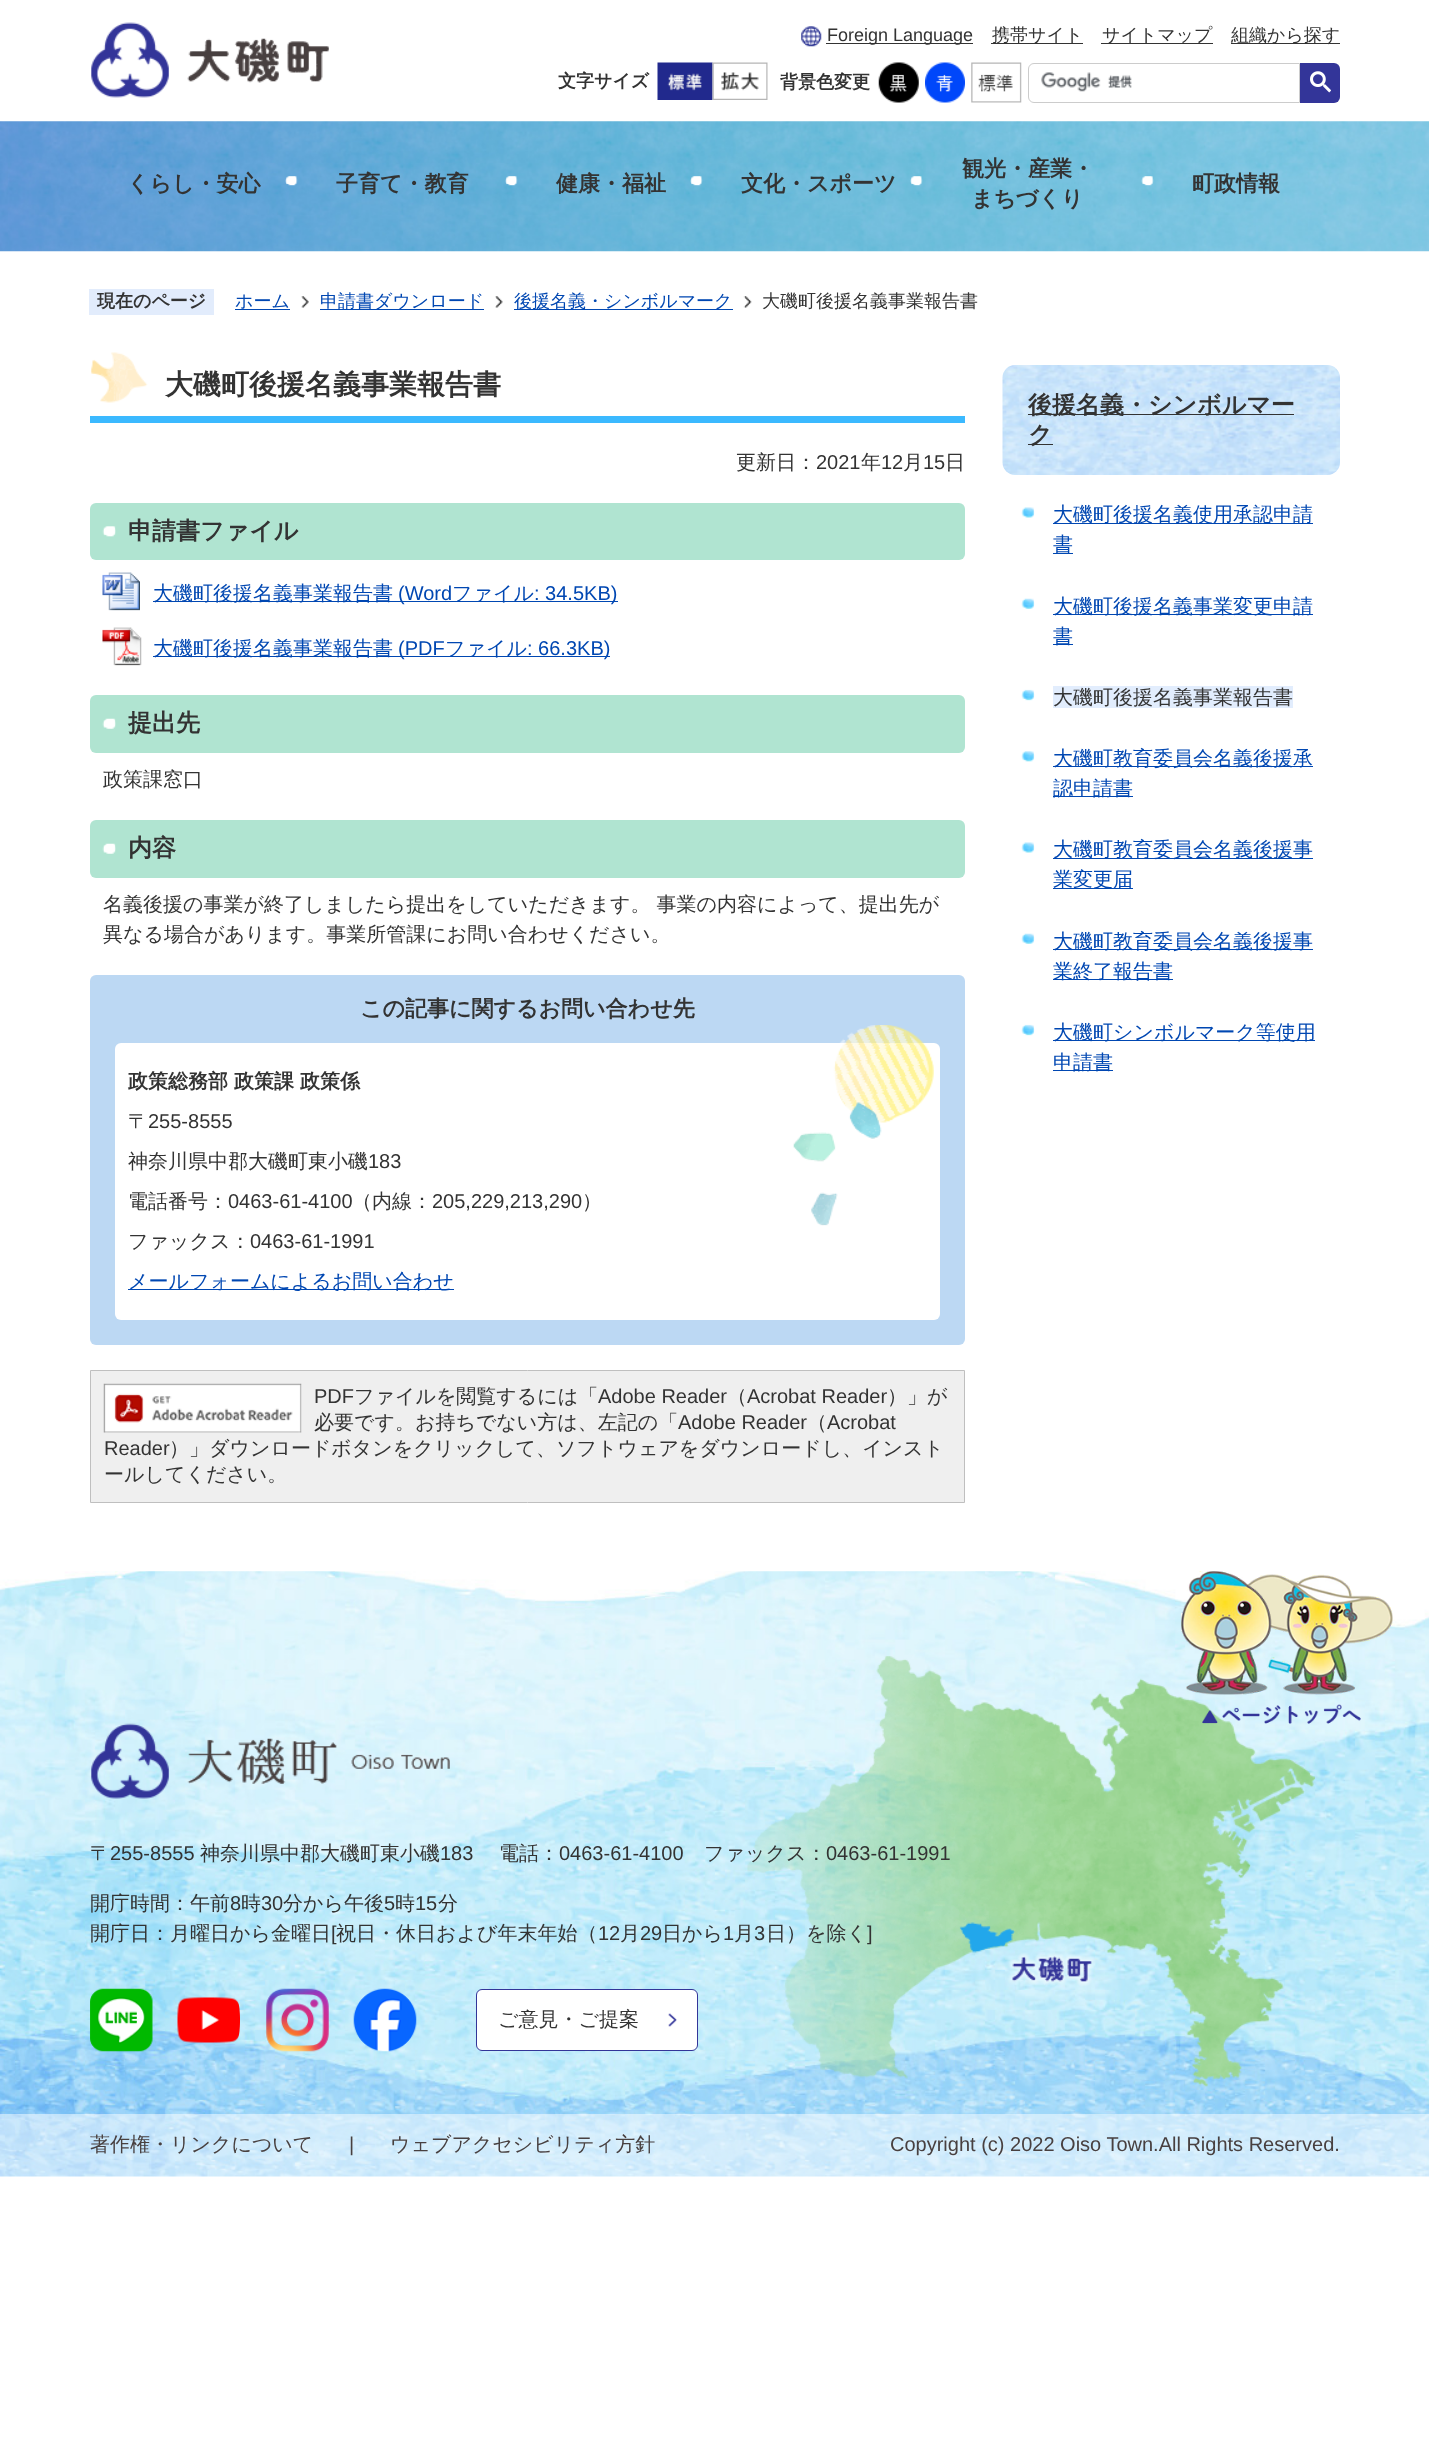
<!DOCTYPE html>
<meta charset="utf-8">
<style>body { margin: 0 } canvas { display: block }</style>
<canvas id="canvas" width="1429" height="2448"></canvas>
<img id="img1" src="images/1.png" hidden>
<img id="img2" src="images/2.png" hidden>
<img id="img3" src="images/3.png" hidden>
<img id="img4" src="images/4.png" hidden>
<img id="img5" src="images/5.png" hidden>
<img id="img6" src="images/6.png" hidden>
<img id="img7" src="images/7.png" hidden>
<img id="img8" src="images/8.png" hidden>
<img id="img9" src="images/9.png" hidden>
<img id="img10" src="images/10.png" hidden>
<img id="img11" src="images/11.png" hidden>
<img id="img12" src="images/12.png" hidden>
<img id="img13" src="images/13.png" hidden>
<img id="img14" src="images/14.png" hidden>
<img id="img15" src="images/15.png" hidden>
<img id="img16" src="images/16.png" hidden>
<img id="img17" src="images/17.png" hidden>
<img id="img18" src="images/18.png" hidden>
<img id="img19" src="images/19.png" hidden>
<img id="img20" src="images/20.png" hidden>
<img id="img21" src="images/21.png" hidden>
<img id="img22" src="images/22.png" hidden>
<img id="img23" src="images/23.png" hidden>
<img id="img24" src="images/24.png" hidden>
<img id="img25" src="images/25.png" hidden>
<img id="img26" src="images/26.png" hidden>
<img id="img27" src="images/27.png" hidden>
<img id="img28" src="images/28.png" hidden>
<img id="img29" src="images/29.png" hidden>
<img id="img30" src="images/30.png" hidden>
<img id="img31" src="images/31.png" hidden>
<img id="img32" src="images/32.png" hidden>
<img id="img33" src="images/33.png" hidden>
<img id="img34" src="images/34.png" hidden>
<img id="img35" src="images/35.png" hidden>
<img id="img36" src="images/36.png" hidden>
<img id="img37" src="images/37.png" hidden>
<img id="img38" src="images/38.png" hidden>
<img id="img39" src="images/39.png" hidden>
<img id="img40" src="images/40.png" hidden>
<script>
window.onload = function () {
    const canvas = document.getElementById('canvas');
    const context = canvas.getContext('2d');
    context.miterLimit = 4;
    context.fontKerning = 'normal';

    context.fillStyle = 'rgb(255, 255, 255)';
    context.fillRect(0, 0, 1429, 2448);
    context.drawImage(document.getElementById('img1'), 91, 22, 238, 76);
    context.drawImage(document.getElementById('img2'), 801, 26, 21, 21);
    context.fillStyle = 'rgb(51, 51, 51)';
    context.fillRect(826, 43, 147, 1);
    context.fillRect(991, 43, 92, 1);
    context.fillRect(1101, 43, 112, 1);
    context.fillRect(1231, 43, 109, 1);
    context.drawImage(document.getElementById('img3'), 657, 62, 56, 38);
    context.drawImage(document.getElementById('img4'), 712, 62, 56, 38);
    context.drawImage(document.getElementById('img5'), 878, 62, 41, 41);
    context.drawImage(document.getElementById('img6'), 925, 62, 40, 41);
    context.drawImage(document.getElementById('img7'), 971, 62, 51, 41);
    context.beginPath();
    context.roundRect(1028.5, 63.5, 271, 39, [5.5, 0, 0, 5.5]);
    context.strokeStyle = 'rgb(204, 204, 204)';
    context.stroke();
    context.drawImage(document.getElementById('img8'), 1041, 72, 91, 20);
    context.fillStyle = 'rgb(51, 53, 153)';
    context.beginPath();
    context.roundRect(1300, 63, 40, 40, [0, 6, 6, 0]);
    context.fill();
    context.drawImage(document.getElementById('img9'), 1310, 71, 21, 22);
    context.drawImage(document.getElementById('img10'), 0, 121, 1429, 131);
    context.drawImage(document.getElementById('img11'), 285, 176, 13, 10);
    context.drawImage(document.getElementById('img12'), 505, 176, 13, 10);
    context.drawImage(document.getElementById('img13'), 690, 176, 13, 10);
    context.drawImage(document.getElementById('img14'), 910, 176, 13, 10);
    context.drawImage(document.getElementById('img15'), 1141, 176, 13, 10);
    context.fillStyle = 'rgb(226, 236, 252)';
    context.fillRect(89, 289, 125, 26);
    context.fillStyle = 'rgb(0, 71, 178)';
    context.fillRect(235, 309, 55, 1);
    context.drawImage(document.getElementById('img16'), 301, 296, 8, 12);
    context.fillRect(320, 309, 164, 1);
    context.drawImage(document.getElementById('img17'), 495, 296, 8, 12);
    context.fillRect(514, 309, 219, 1);
    context.drawImage(document.getElementById('img18'), 743, 296, 9, 12);
    context.fillStyle = 'rgb(59, 185, 255)';
    context.fillRect(90, 416, 875, 7);
    context.drawImage(document.getElementById('img19'), 91, 352, 57, 51);
    context.fillStyle = 'rgb(176, 228, 209)';
    context.beginPath();
    context.roundRect(90, 503, 875, 57, 6);
    context.fill();
    context.drawImage(document.getElementById('img20'), 102, 526, 14, 11);
    context.drawImage(document.getElementById('img21'), 102, 572, 38, 39);
    context.fillStyle = 'rgb(0, 71, 178)';
    context.fillRect(153, 601, 465, 1);
    context.drawImage(document.getElementById('img22'), 102, 627, 40, 39);
    context.fillRect(153, 656, 457, 1);
    context.fillStyle = 'rgb(176, 228, 209)';
    context.beginPath();
    context.roundRect(90, 695, 875, 58, 6);
    context.fill();
    context.drawImage(document.getElementById('img23'), 102, 718, 14, 11);
    context.beginPath();
    context.roundRect(90, 820, 875, 58, 6);
    context.fill();
    context.drawImage(document.getElementById('img23'), 102, 843, 14, 11);
    context.fillStyle = 'rgb(188, 216, 243)';
    context.beginPath();
    context.roundRect(90, 975, 875, 370, 6);
    context.fill();
    context.fillStyle = 'rgb(255, 255, 255)';
    context.beginPath();
    context.roundRect(115, 1043, 825, 277, 6);
    context.fill();
    context.fillStyle = 'rgb(0, 71, 178)';
    context.fillRect(128, 1289, 326, 1);
    context.drawImage(document.getElementById('img24'), 793, 1025, 141, 201);
    context.fillStyle = 'rgb(239, 239, 239)';
    context.beginPath();
    context.rect(90.5, 1370.5, 874, 132);
    context.fill();
    context.strokeStyle = 'rgb(191, 191, 191)';
    context.stroke();
    context.drawImage(document.getElementById('img25'), 103, 1383, 199, 50);
    context.drawImage(document.getElementById('img26'), 1002, 365, 338, 110);
    context.fillStyle = 'rgb(51, 51, 51)';
    context.fillRect(1028, 414, 266, 1);
    context.fillRect(1028, 444, 25, 1);
    context.drawImage(document.getElementById('img27'), 1021, 507, 14, 11);
    context.fillStyle = 'rgb(0, 71, 178)';
    context.fillRect(1053, 523, 260, 1);
    context.fillRect(1053, 553, 20, 1);
    context.drawImage(document.getElementById('img28'), 1021, 598, 14, 11);
    context.fillRect(1053, 614, 260, 1);
    context.fillRect(1053, 644, 20, 1);
    context.drawImage(document.getElementById('img29'), 1021, 689, 14, 12);
    context.fillStyle = 'rgb(226, 237, 253)';
    context.fillRect(1053, 686, 240, 22);
    context.drawImage(document.getElementById('img30'), 1021, 751, 14, 11);
    context.fillStyle = 'rgb(0, 71, 178)';
    context.fillRect(1053, 766, 260, 1);
    context.fillRect(1053, 796, 80, 1);
    context.drawImage(document.getElementById('img27'), 1021, 842, 14, 11);
    context.fillRect(1053, 858, 260, 1);
    context.fillRect(1053, 888, 80, 1);
    context.drawImage(document.getElementById('img28'), 1021, 933, 14, 11);
    context.fillRect(1053, 949, 260, 1);
    context.fillRect(1053, 979, 120, 1);
    context.drawImage(document.getElementById('img31'), 1021, 1024, 14, 12);
    context.fillRect(1053, 1040, 262, 1);
    context.fillRect(1053, 1070, 60, 1);
    context.drawImage(document.getElementById('img32'), 0, 1571, 1429, 606);
    context.drawImage(document.getElementById('img33'), 747, 1656, 568, 431);
    context.drawImage(document.getElementById('img34'), 1181, 1571, 212, 153);
    context.drawImage(document.getElementById('img35'), 91, 1723, 359, 76);
    context.drawImage(document.getElementById('img36'), 90, 1988, 63, 64);
    context.drawImage(document.getElementById('img37'), 177, 1997, 63, 46);
    context.drawImage(document.getElementById('img38'), 266, 1988, 63, 64);
    context.drawImage(document.getElementById('img39'), 353, 1988, 64, 64);
    context.fillStyle = 'rgb(255, 255, 255)';
    context.beginPath();
    context.roundRect(476.5, 1989.5, 221, 61, 5.5);
    context.fill();
    context.strokeStyle = 'rgb(51, 53, 153)';
    context.stroke();
    context.drawImage(document.getElementById('img40'), 668, 2013, 9, 14);
    context.fillStyle = 'rgba(255, 255, 255, 0.5)';
    context.fillRect(0, 2114, 1429, 62);
    context.font = '18px Liberation Sans';
    context.fillStyle = 'rgb(51, 51, 51)';
    context.fillText('Foreign Language', 827, 41);
    context.font = '500 18px WenQuanYi Zen Hei';
    context.fillText('携帯サイト', 992, 41);
    context.fillText('サイトマップ', 1102, 41);
    context.fillText('組織から探す', 1231, 41);
    context.font = 'bold 18px WenQuanYi Zen Hei';
    context.fillText('文字サイズ', 558, 87);
    context.fillText('背景色変更', 780, 88);
    context.font = 'bold 22px WenQuanYi Zen Hei';
    context.fillText('くらし・安心', 127, 191);
    context.fillText('子育て・教育', 336, 191);
    context.fillText('健康・福祉', 556, 191);
    context.fillText('文化・スポーツ', 741, 191);
    context.fillText('観光・産業・', 962, 176);
    context.fillText('まちづくり', 971, 206);
    context.fillText('町政情報', 1192, 191);
    context.font = 'bold 18px WenQuanYi Zen Hei';
    context.fillText('現在のページ', 97, 307);
    context.font = '500 18px WenQuanYi Zen Hei';
    context.fillStyle = 'rgb(0, 71, 178)';
    context.fillText('ホーム', 235, 307);
    context.fillText('申請書ダウンロード', 320, 307);
    context.fillText('後援名義・シンボルマーク', 514, 307);
    context.fillStyle = 'rgb(51, 51, 51)';
    context.fillText('大磯町後援名義事業報告書', 762, 307);
    context.font = 'bold 28px WenQuanYi Zen Hei';
    context.fillText('大磯町後援名義事業報告書', 165, 394);
    context.font = '500 20px WenQuanYi Zen Hei';
    context.fillText('更新日：', 736, 469);
    context.font = '20px Liberation Sans';
    context.fillText('2021', 816, 469);
    context.font = '500 20px WenQuanYi Zen Hei';
    context.fillText('年', 861, 469);
    context.font = '20px Liberation Sans';
    context.fillText('12', 881, 469);
    context.font = '500 20px WenQuanYi Zen Hei';
    context.fillText('月', 903, 469);
    context.font = '20px Liberation Sans';
    context.fillText('15', 923, 469);
    context.font = '500 20px WenQuanYi Zen Hei';
    context.fillText('日', 945, 469);
    context.font = 'bold 24px WenQuanYi Zen Hei';
    context.fillText('申請書ファイル', 128, 539);
    context.font = '500 20px WenQuanYi Zen Hei';
    context.fillStyle = 'rgb(0, 71, 178)';
    context.fillText('大磯町後援名義事業報告書', 153, 600);
    context.font = '20px Liberation Sans';
    context.fillText('(Word', 398, 600);
    context.font = '500 20px WenQuanYi Zen Hei';
    context.fillText('ファイル', 452, 600);
    context.font = '20px Liberation Sans';
    context.fillText(': 34.5KB)', 534, 600);
    context.font = '500 20px WenQuanYi Zen Hei';
    context.fillText('大磯町後援名義事業報告書', 153, 655);
    context.font = '20px Liberation Sans';
    context.fillText('(PDF', 398, 655);
    context.font = '500 20px WenQuanYi Zen Hei';
    context.fillText('ファイル', 445, 655);
    context.font = '20px Liberation Sans';
    context.fillText(': 66.3KB)', 527, 655);
    context.font = 'bold 24px WenQuanYi Zen Hei';
    context.fillStyle = 'rgb(51, 51, 51)';
    context.fillText('提出先', 128, 731);
    context.font = '500 20px WenQuanYi Zen Hei';
    context.fillText('政策課窓口', 103, 786);
    context.font = 'bold 24px WenQuanYi Zen Hei';
    context.fillText('内容', 128, 856);
    context.font = '500 20px WenQuanYi Zen Hei';
    context.fillText('名義後援の事業が終了しましたら提出をしていただきます。 事業の内容によって、提出先が', 103, 911);
    context.fillText('異なる場合があります。事業所管課にお問い合わせください。', 103, 941);
    context.font = 'bold 22px WenQuanYi Zen Hei';
    context.fillText('この記事に関するお問い合わせ先', 360, 1016);
    context.font = 'bold 20px WenQuanYi Zen Hei';
    context.fillText('政策総務部 政策課 政策係', 128, 1088);
    context.font = '500 20px WenQuanYi Zen Hei';
    context.fillText('〒', 128, 1128);
    context.font = '20px Liberation Sans';
    context.fillText('255-8555', 148, 1128);
    context.font = '500 20px WenQuanYi Zen Hei';
    context.fillText('神奈川県中郡大磯町東小磯', 128, 1168);
    context.font = '20px Liberation Sans';
    context.fillText('183', 368, 1168);
    context.font = '500 20px WenQuanYi Zen Hei';
    context.fillText('電話番号：', 128, 1208);
    context.font = '20px Liberation Sans';
    context.fillText('0463-61-4100', 228, 1208);
    context.font = '500 20px WenQuanYi Zen Hei';
    context.fillText('（内線：', 352, 1208);
    context.font = '20px Liberation Sans';
    context.fillText('205,229,213,290', 432, 1208);
    context.font = '500 20px WenQuanYi Zen Hei';
    context.fillText('）', 582, 1208);
    context.fillText('ファックス：', 128, 1248);
    context.font = '20px Liberation Sans';
    context.fillText('0463-61-1991', 250, 1248);
    context.font = '500 20px WenQuanYi Zen Hei';
    context.fillStyle = 'rgb(0, 71, 178)';
    context.fillText('メールフォームによるお問い合わせ', 128, 1288);
    context.font = '20px Liberation Sans';
    context.fillStyle = 'rgb(51, 51, 51)';
    context.fillText('PDF', 314, 1403);
    context.font = '500 20px WenQuanYi Zen Hei';
    context.fillText('ファイルを閲覧するには「', 354, 1403);
    context.font = '20px Liberation Sans';
    context.fillText('Adobe Reader', 598, 1403);
    context.font = '500 20px WenQuanYi Zen Hei';
    context.fillText('（', 727, 1403);
    context.font = '20px Liberation Sans';
    context.fillText('Acrobat Reader', 747, 1403);
    context.font = '500 20px WenQuanYi Zen Hei';
    context.fillText('）」が', 887, 1403);
    context.fillText('必要です。お持ちでない方は、左記の「', 314, 1429);
    context.font = '20px Liberation Sans';
    context.fillText('Adobe Reader', 678, 1429);
    context.font = '500 20px WenQuanYi Zen Hei';
    context.fillText('（', 807, 1429);
    context.font = '20px Liberation Sans';
    context.fillText('Acrobat', 827, 1429);
    context.fillText('Reader', 104, 1455);
    context.font = '500 20px WenQuanYi Zen Hei';
    context.fillText('）」ダウンロードボタンをクリックして、ソフトウェアをダウンロードし、インスト', 169, 1455);
    context.fillText('ールしてください。', 104, 1481);
    context.font = 'bold 24px WenQuanYi Zen Hei';
    context.fillText('後援名義・シンボルマー', 1028, 413);
    context.fillText('ク', 1028, 443);
    context.font = '500 20px WenQuanYi Zen Hei';
    context.fillStyle = 'rgb(0, 71, 178)';
    context.fillText('大磯町後援名義使用承認申請', 1053, 521);
    context.fillText('書', 1053, 551);
    context.fillText('大磯町後援名義事業変更申請', 1053, 613);
    context.fillText('書', 1053, 643);
    context.fillStyle = 'rgb(51, 51, 51)';
    context.fillText('大磯町後援名義事業報告書', 1053, 704);
    context.fillStyle = 'rgb(0, 71, 178)';
    context.fillText('大磯町教育委員会名義後援承', 1053, 765);
    context.fillText('認申請書', 1053, 795);
    context.fillText('大磯町教育委員会名義後援事', 1053, 856);
    context.fillText('業変更届', 1053, 886);
    context.fillText('大磯町教育委員会名義後援事', 1053, 948);
    context.fillText('業終了報告書', 1053, 978);
    context.fillText('大磯町シンボルマーク等使用', 1053, 1039);
    context.fillText('申請書', 1053, 1069);
    context.fillStyle = 'rgb(51, 51, 51)';
    context.fillText('〒', 90, 1860);
    context.font = '20px Liberation Sans';
    context.fillText('255-8555', 110, 1860);
    context.font = '500 20px WenQuanYi Zen Hei';
    context.fillText('神奈川県中郡大磯町東小磯', 200, 1860);
    context.font = '20px Liberation Sans';
    context.fillText('183', 440, 1860);
    context.font = '500 20px WenQuanYi Zen Hei';
    context.fillText('電話：', 499, 1860);
    context.font = '20px Liberation Sans';
    context.fillText('0463-61-4100', 559, 1860);
    context.font = '500 20px WenQuanYi Zen Hei';
    context.fillText('ファックス：', 704, 1860);
    context.font = '20px Liberation Sans';
    context.fillText('0463-61-1991', 826, 1860);
    context.font = '500 20px WenQuanYi Zen Hei';
    context.fillText('開庁時間：午前', 90, 1910);
    context.font = '20px Liberation Sans';
    context.fillText('8', 230, 1910);
    context.font = '500 20px WenQuanYi Zen Hei';
    context.fillText('時', 241, 1910);
    context.font = '20px Liberation Sans';
    context.fillText('30', 261, 1910);
    context.font = '500 20px WenQuanYi Zen Hei';
    context.fillText('分から午後', 283, 1910);
    context.font = '20px Liberation Sans';
    context.fillText('5', 384, 1910);
    context.font = '500 20px WenQuanYi Zen Hei';
    context.fillText('時', 395, 1910);
    context.font = '20px Liberation Sans';
    context.fillText('15', 415, 1910);
    context.font = '500 20px WenQuanYi Zen Hei';
    context.fillText('分', 438, 1910);
    context.fillText('開庁日：月曜日から金曜日', 90, 1940);
    context.font = '20px Liberation Sans';
    context.fillText('[', 331, 1940);
    context.font = '500 20px WenQuanYi Zen Hei';
    context.fillText('祝日・休日および年末年始（', 336, 1940);
    context.font = '20px Liberation Sans';
    context.fillText('12', 598, 1940);
    context.font = '500 20px WenQuanYi Zen Hei';
    context.fillText('月', 620, 1940);
    context.font = '20px Liberation Sans';
    context.fillText('29', 640, 1940);
    context.font = '500 20px WenQuanYi Zen Hei';
    context.fillText('日から', 662, 1940);
    context.font = '20px Liberation Sans';
    context.fillText('1', 723, 1940);
    context.font = '500 20px WenQuanYi Zen Hei';
    context.fillText('月', 734, 1940);
    context.font = '20px Liberation Sans';
    context.fillText('3', 754, 1940);
    context.font = '500 20px WenQuanYi Zen Hei';
    context.fillText('日）を除く', 766, 1940);
    context.font = '20px Liberation Sans';
    context.fillText(']', 867, 1940);
    context.font = '500 20px WenQuanYi Zen Hei';
    context.fillText('ご意見・ご提案', 498, 2026);
    context.fillStyle = 'rgb(72, 64, 64)';
    context.fillText('著作権・リンクについて', 90, 2151);
    context.font = '20px Liberation Sans';
    context.fillText('|', 349, 2151);
    context.font = '500 20px WenQuanYi Zen Hei';
    context.fillText('ウェブアクセシビリティ方針', 390, 2151);
    context.font = '20px Liberation Sans';
    context.fillText('Copyright (c) 2022 Oiso Town.All Rights Reserved.', 890, 2151);
};
</script>
